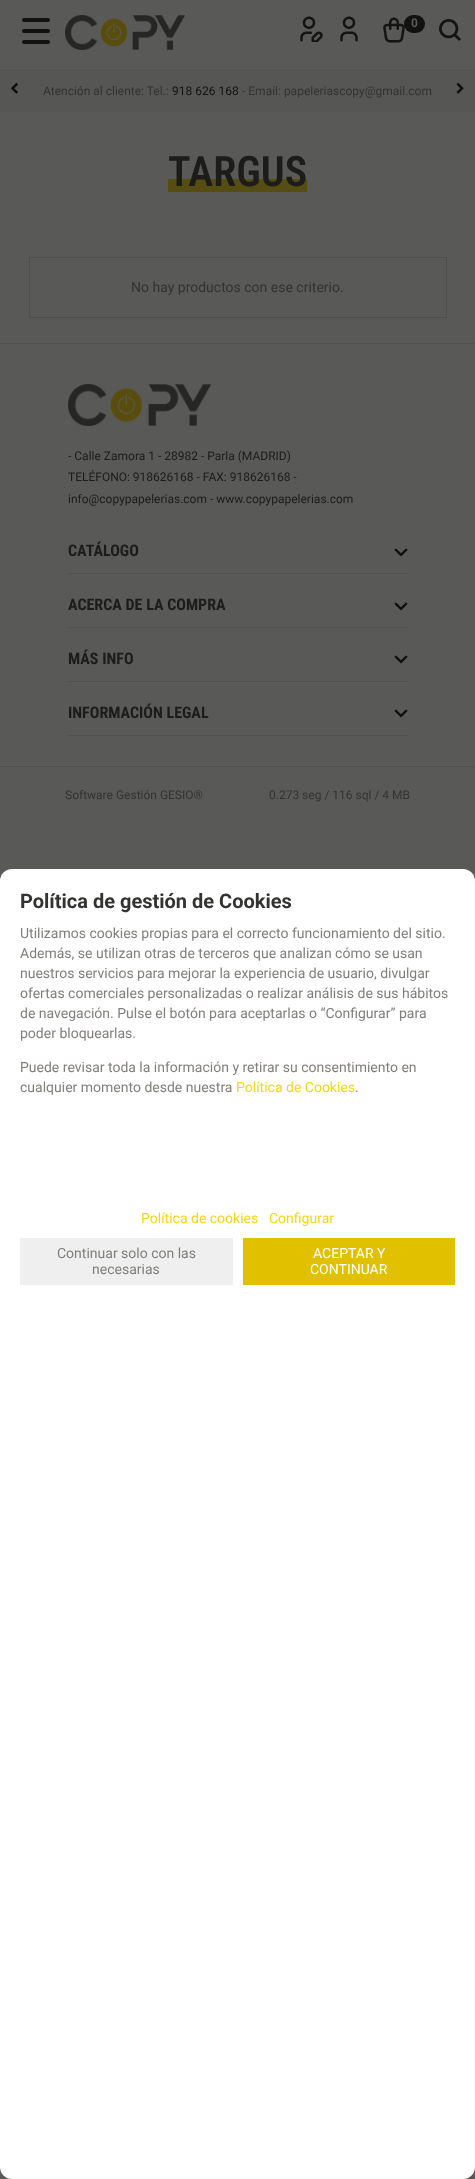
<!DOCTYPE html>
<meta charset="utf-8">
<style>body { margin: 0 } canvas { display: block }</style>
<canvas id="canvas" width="475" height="2179"></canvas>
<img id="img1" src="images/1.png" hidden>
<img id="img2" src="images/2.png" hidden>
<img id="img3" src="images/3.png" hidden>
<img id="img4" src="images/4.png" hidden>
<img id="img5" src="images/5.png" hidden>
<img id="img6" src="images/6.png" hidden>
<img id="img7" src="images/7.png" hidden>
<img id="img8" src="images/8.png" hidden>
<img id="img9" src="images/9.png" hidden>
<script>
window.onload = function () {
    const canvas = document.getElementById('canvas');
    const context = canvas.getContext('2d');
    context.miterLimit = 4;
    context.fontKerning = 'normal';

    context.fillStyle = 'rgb(89, 89, 88)';
    context.fillRect(0, 0, 475, 2179);
    context.fillStyle = 'rgb(18, 18, 17)';
    context.beginPath();
    context.roundRect(22, 18, 28, 4, 2);
    context.fill();
    context.beginPath();
    context.roundRect(22, 29, 28, 4, 2);
    context.fill();
    context.beginPath();
    context.roundRect(22, 40, 28, 4, 2);
    context.fill();
    context.drawImage(document.getElementById('img1'), 65, 15, 120, 35);
    context.drawImage(document.getElementById('img2'), 300, 16, 23, 26);
    context.drawImage(document.getElementById('img3'), 340, 16, 18, 26);
    context.drawImage(document.getElementById('img4'), 383, 17, 22, 26);
    context.beginPath();
    context.roundRect(404, 15, 21, 18, 9);
    context.fill();
    context.drawImage(document.getElementById('img5'), 439, 19, 22, 22);
    context.fillStyle = 'rgb(86, 86, 85)';
    context.fillRect(0, 71, 475, 41);
    context.fillStyle = 'rgb(82, 81, 79)';
    context.fillRect(0, 70, 475, 1);
    context.drawImage(document.getElementById('img6'), 11, 82, 7, 12);
    context.drawImage(document.getElementById('img7'), 456, 82, 8, 12);
    context.fillStyle = 'rgb(85, 77, 17)';
    context.fillRect(168, 179, 139, 13);
    context.strokeStyle = 'rgb(79, 79, 76)';
    context.strokeRect(29.5, 257.5, 417, 60);
    context.fillStyle = 'rgb(82, 81, 79)';
    context.fillRect(0, 343, 475, 1);
    context.drawImage(document.getElementById('img8'), 68, 384, 143, 42);
    context.drawImage(document.getElementById('img9'), 394, 548, 14, 9);
    context.fillRect(68, 573, 340, 1);
    context.drawImage(document.getElementById('img9'), 394, 602, 14, 9);
    context.fillRect(68, 627, 340, 1);
    context.drawImage(document.getElementById('img9'), 394, 655, 14, 9);
    context.fillRect(68, 681, 340, 1);
    context.drawImage(document.getElementById('img9'), 394, 709, 14, 9);
    context.fillRect(68, 735, 340, 1);
    context.fillRect(0, 766, 475, 1);
    context.fillStyle = 'rgb(255, 255, 255)';
    context.beginPath();
    context.roundRect(0, 869, 475, 1310, 12);
    context.fill();
    context.fillStyle = 'rgb(239, 239, 239)';
    context.fillRect(20, 1238, 213, 47);
    context.fillStyle = 'rgb(225, 192, 0)';
    context.fillRect(243, 1238, 212, 47);
    context.font = 'bold 12px Roboto';
    context.fillStyle = 'rgb(89, 89, 88)';
    context.fillText('0', 411, 27);
    context.font = '12px Roboto';
    context.fillStyle = 'rgb(51, 51, 49)';
    context.fillText('Atención al cliente: Tel.:', 43, 95);
    context.fillStyle = 'rgb(18, 18, 17)';
    context.fillText('918 626 168', 172, 95);
    context.fillStyle = 'rgb(51, 51, 49)';
    context.fillText('- Email: papeleriascopy@gmail.com', 242, 95);
    context.font = '600 42px Roboto Condensed';
    context.fillStyle = 'rgb(28, 28, 27)';
    context.fillText('TARGUS', 168, 186);
    context.font = '14px Roboto';
    context.fillStyle = 'rgb(51, 51, 49)';
    context.fillText('No hay productos con ese criterio.', 131, 292);
    context.font = '12px Roboto';
    context.fillStyle = 'rgb(28, 28, 27)';
    context.fillText('- Calle Zamora 1 - 28982 - Parla (MADRID)', 68, 460);
    context.fillText('TELÉFONO: 918626168 - FAX: 918626168 -', 68, 481);
    context.fillText('info@copypapelerias.com - www.copypapelerias.com', 68, 503);
    context.font = 'bold 16px Roboto Condensed';
    context.fillText('CATÁLOGO', 68, 556);
    context.fillText('ACERCA DE LA COMPRA', 68, 610);
    context.fillText('MÁS INFO', 68, 664);
    context.fillText('INFORMACIÓN LEGAL', 68, 718);
    context.font = '12px Roboto';
    context.fillStyle = 'rgb(51, 51, 49)';
    context.fillText('Software Gestión GESIO®', 65, 799);
    context.fillText('0.273 seg / 116 sql / 4 MB', 269, 799);
    context.font = 'bold 20px Roboto';
    context.fillText('Política de gestión de Cookies', 20, 908);
    context.font = '14px Roboto';
    context.fillStyle = 'rgb(128, 127, 124)';
    context.fillText('Utilizamos cookies propias para el correcto funcionamiento del sitio.', 20, 938);
    context.fillText('Además, se utilizan otras de terceros que analizan cómo se usan', 20, 958);
    context.fillText('nuestros servicios para mejorar la experiencia de usuario, divulgar', 20, 978);
    context.fillText('ofertas comerciales personalizadas o realizar análisis de sus hábitos', 20, 998);
    context.fillText('de navegación. Pulse el botón para aceptarlas o “Configurar” para', 20, 1018);
    context.fillText('poder bloquearlas.', 20, 1038);
    context.fillText('Puede revisar toda la información y retirar su consentimiento en', 20, 1072);
    context.fillText('cualquier momento desde nuestra', 20, 1092);
    context.fillStyle = 'rgb(242, 215, 17)';
    context.fillText('Política de Cookies', 236, 1092);
    context.fillStyle = 'rgb(128, 127, 124)';
    context.fillText('.', 355, 1092);
    context.fillStyle = 'rgb(242, 215, 17)';
    context.fillText('Política de cookies', 141, 1223);
    context.fillText('Configurar', 269, 1223);
    context.fillStyle = 'rgb(128, 127, 124)';
    context.fillText('Continuar solo con las', 57, 1258);
    context.fillText('necesarias', 92, 1274);
    context.fillStyle = 'rgb(255, 255, 255)';
    context.fillText('ACEPTAR Y', 313, 1258);
    context.fillText('CONTINUAR', 310, 1274);
};
</script>
